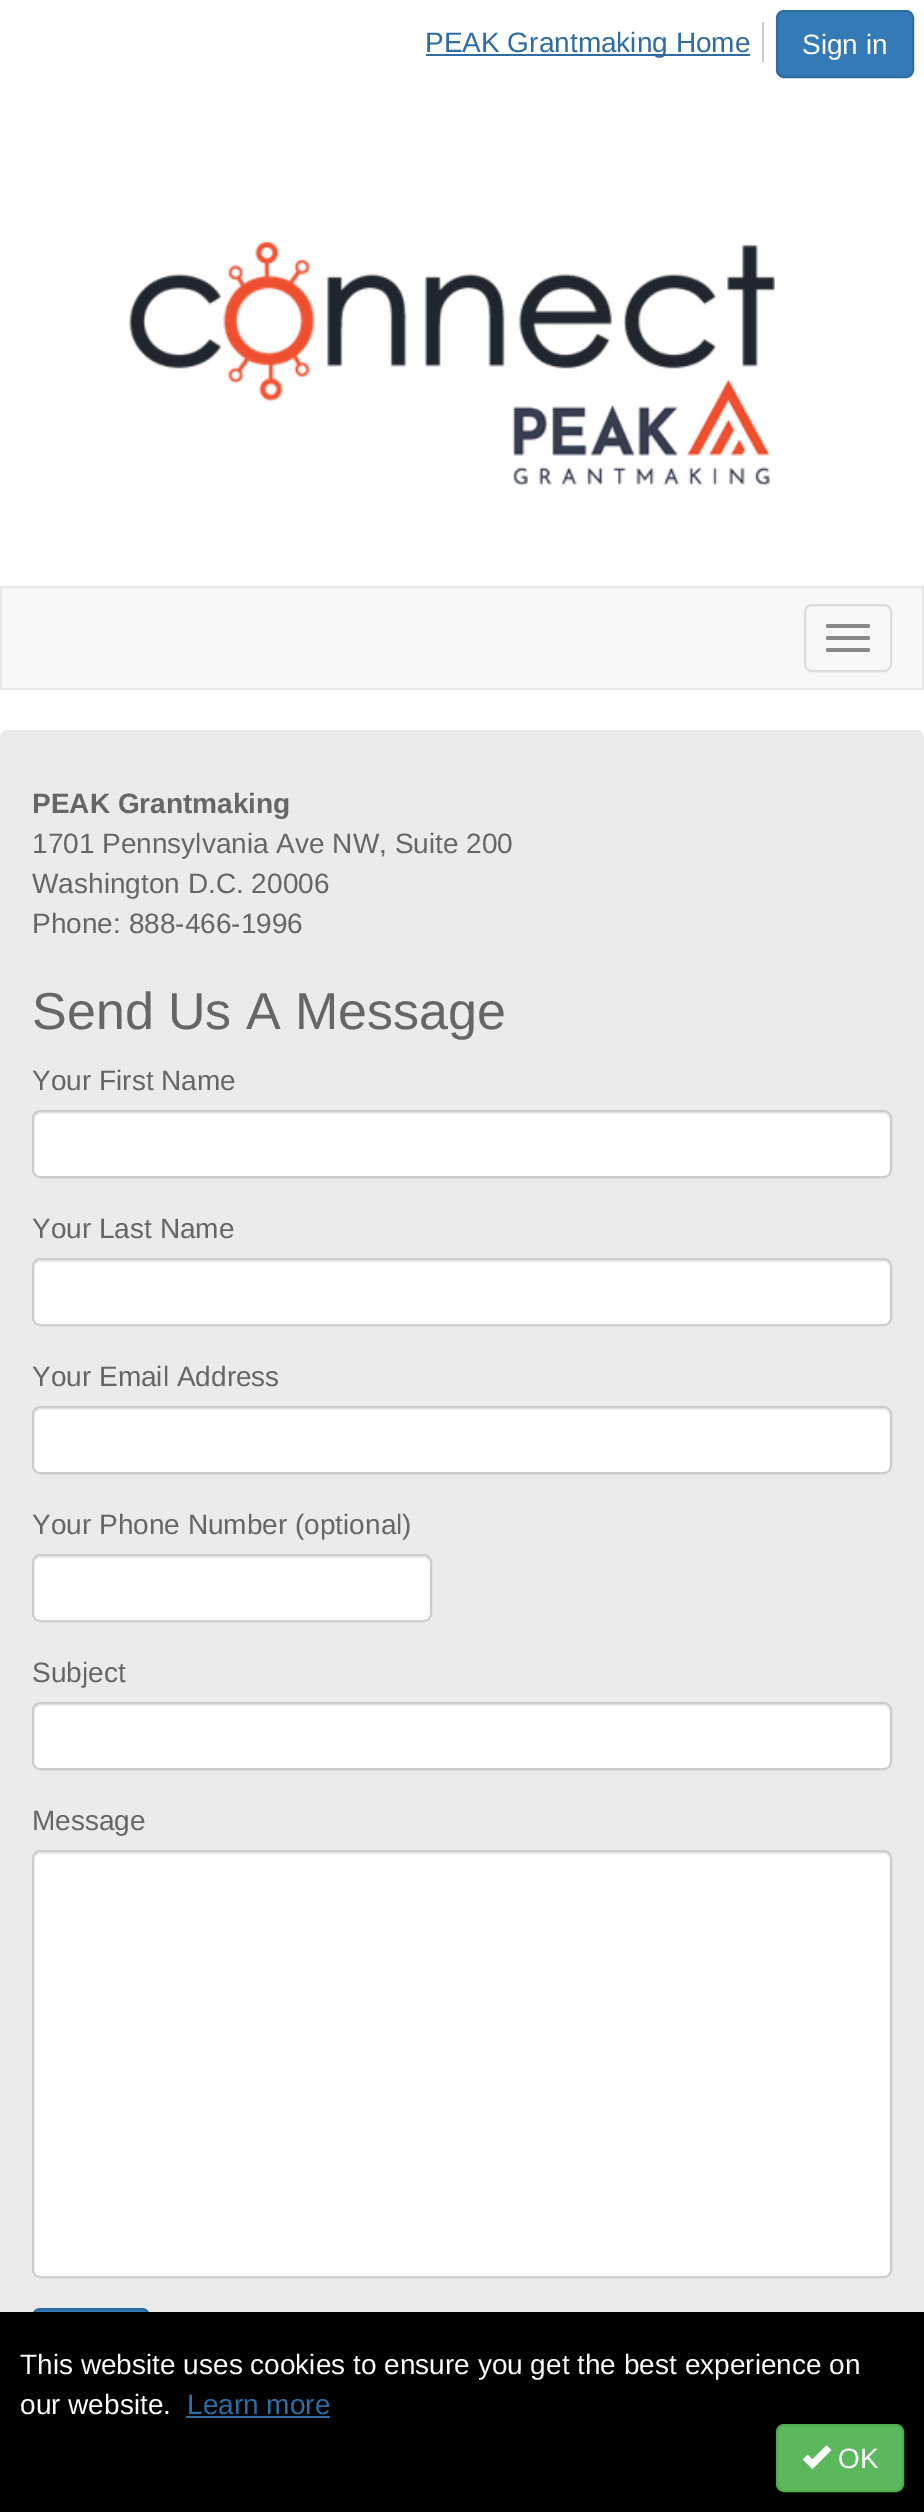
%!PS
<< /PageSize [924 2512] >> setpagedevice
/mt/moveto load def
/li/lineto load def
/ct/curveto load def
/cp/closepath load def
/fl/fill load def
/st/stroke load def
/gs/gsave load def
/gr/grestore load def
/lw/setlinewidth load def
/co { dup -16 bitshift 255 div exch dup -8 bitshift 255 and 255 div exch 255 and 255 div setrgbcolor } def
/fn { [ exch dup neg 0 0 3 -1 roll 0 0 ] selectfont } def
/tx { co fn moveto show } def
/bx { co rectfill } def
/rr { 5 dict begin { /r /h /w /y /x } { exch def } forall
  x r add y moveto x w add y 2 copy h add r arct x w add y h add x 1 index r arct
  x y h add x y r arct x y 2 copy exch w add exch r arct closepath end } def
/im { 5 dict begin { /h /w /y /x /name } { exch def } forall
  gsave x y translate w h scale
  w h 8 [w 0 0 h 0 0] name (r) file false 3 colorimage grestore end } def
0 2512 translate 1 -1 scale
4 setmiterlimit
0 0 924 2512 16#FFFFFF bx
762 22 2 40 16#CCCCCC bx
426 54 324 2 16#2E6DA4 bx
16#337AB7 co
777 11 136 66 7 rr gs fl gr
16#2E6DA4 co
2 lw
st
(media/1.raw) 129 241 647 245 im
16#F8F8F8 co
1 587 mt 923 587 li 923 689 li 1 689 li cp gs fl gr
16#E7E7E7 co
st
16#DDDDDD co
805 605 86 66 7 rr st
16#888888 co
826 624 44 4 2 rr fl
826 636 44 4 2 rr fl
826 648 44 4 2 rr fl
16#EBEBEB co
0 730 924 1668 8 rr fl
16#FFFFFF co
32 1110 860 68 8 rr fl
16#ECECEC co
40 1114 mt 884 1114 li 887 1114 890 1117 890 1120 ct 890 1116 889 1112 884 1112 ct 40 1112 li 35 1112 34 1116 34 1120 ct 34 1117 37 1114 40 1114 ct cp fl
16#CCCCCC co
33 1111 858 66 7 rr st
16#FFFFFF co
32 1258 860 68 8 rr fl
16#ECECEC co
40 1262 mt 884 1262 li 887 1262 890 1265 890 1268 ct 890 1264 889 1260 884 1260 ct 40 1260 li 35 1260 34 1264 34 1268 ct 34 1265 37 1262 40 1262 ct cp fl
16#CCCCCC co
33 1259 858 66 7 rr st
16#FFFFFF co
32 1406 860 68 8 rr fl
16#ECECEC co
40 1410 mt 884 1410 li 887 1410 890 1413 890 1416 ct 890 1412 889 1408 884 1408 ct 40 1408 li 35 1408 34 1412 34 1416 ct 34 1413 37 1410 40 1410 ct cp fl
16#CCCCCC co
33 1407 858 66 7 rr st
16#FFFFFF co
32 1554 400 68 8 rr fl
16#ECECEC co
40 1558 mt 424 1558 li 427 1558 430 1561 430 1564 ct 430 1560 429 1556 424 1556 ct 40 1556 li 35 1556 34 1560 34 1564 ct 34 1561 37 1558 40 1558 ct cp fl
16#CCCCCC co
33 1555 398 66 7 rr st
16#FFFFFF co
32 1702 860 68 8 rr fl
16#ECECEC co
40 1706 mt 884 1706 li 887 1706 890 1709 890 1712 ct 890 1708 889 1704 884 1704 ct 40 1704 li 35 1704 34 1708 34 1712 ct 34 1709 37 1706 40 1706 ct cp fl
16#CCCCCC co
33 1703 858 66 7 rr st
16#FFFFFF co
32 1850 860 428 8 rr fl
16#ECECEC co
40 1854 mt 884 1854 li 887 1854 890 1857 890 1860 ct 890 1856 889 1852 884 1852 ct 40 1852 li 35 1852 34 1856 34 1860 ct 34 1857 37 1854 40 1854 ct cp fl
16#CCCCCC co
33 1851 858 426 7 rr st
16#337AB7 co
33 2309 116 66 7 rr gs fl gr
16#2E6DA4 co
st
0 2312 924 200 16#000000 bx
186 2416 144 2 16#2E6DA4 bx
16#5CB85C co
777 2425 126 66 7 rr gs fl gr
16#4CAE4C co
st
(media/2.raw) 802 2445 30 24 im
(PEAK Grantmaking Home) 425 52 /LiberationSans-Regular 28 16#2E6DA4 tx
(Sign in) 802 54 /LiberationSans-Regular 28 16#FFFFFF tx
(PEAK Grantmaking) 32 813 /LiberationSans-Bold 28 16#666666 tx
(1701 Pennsylvania Ave NW, Suite 200) 32 853 /LiberationSans-Regular 28 16#666666 tx
(Washington D.C. 20006) 32 893 /LiberationSans-Regular 28 16#666666 tx
(Phone: 888-466-1996) 32 933 /LiberationSans-Regular 28 16#666666 tx
(Send Us A Message) 32 1029 /LiberationSans-Regular 52 16#666666 tx
(Your First Name) 32 1090 /LiberationSans-Regular 28 16#666666 tx
(Your Last Name) 32 1238 /LiberationSans-Regular 28 16#666666 tx
(Your Email Address) 32 1386 /LiberationSans-Regular 28 16#666666 tx
(Your Phone Number \(optional\)) 32 1534 /LiberationSans-Regular 28 16#666666 tx
(Subject) 32 1682 /LiberationSans-Regular 28 16#666666 tx
(Message) 32 1830 /LiberationSans-Regular 28 16#666666 tx
(This website uses cookies to ensure you get the best experience on) 20 2374 /LiberationSans-Regular 28 16#FFFFFF tx
(our website.) 20 2414 /LiberationSans-Regular 28 16#FFFFFF tx
(Learn more) 187 2414 /LiberationSans-Regular 28 16#2E6DA4 tx
(OK) 838 2468 /LiberationSans-Regular 28 16#FFFFFF tx
showpage
